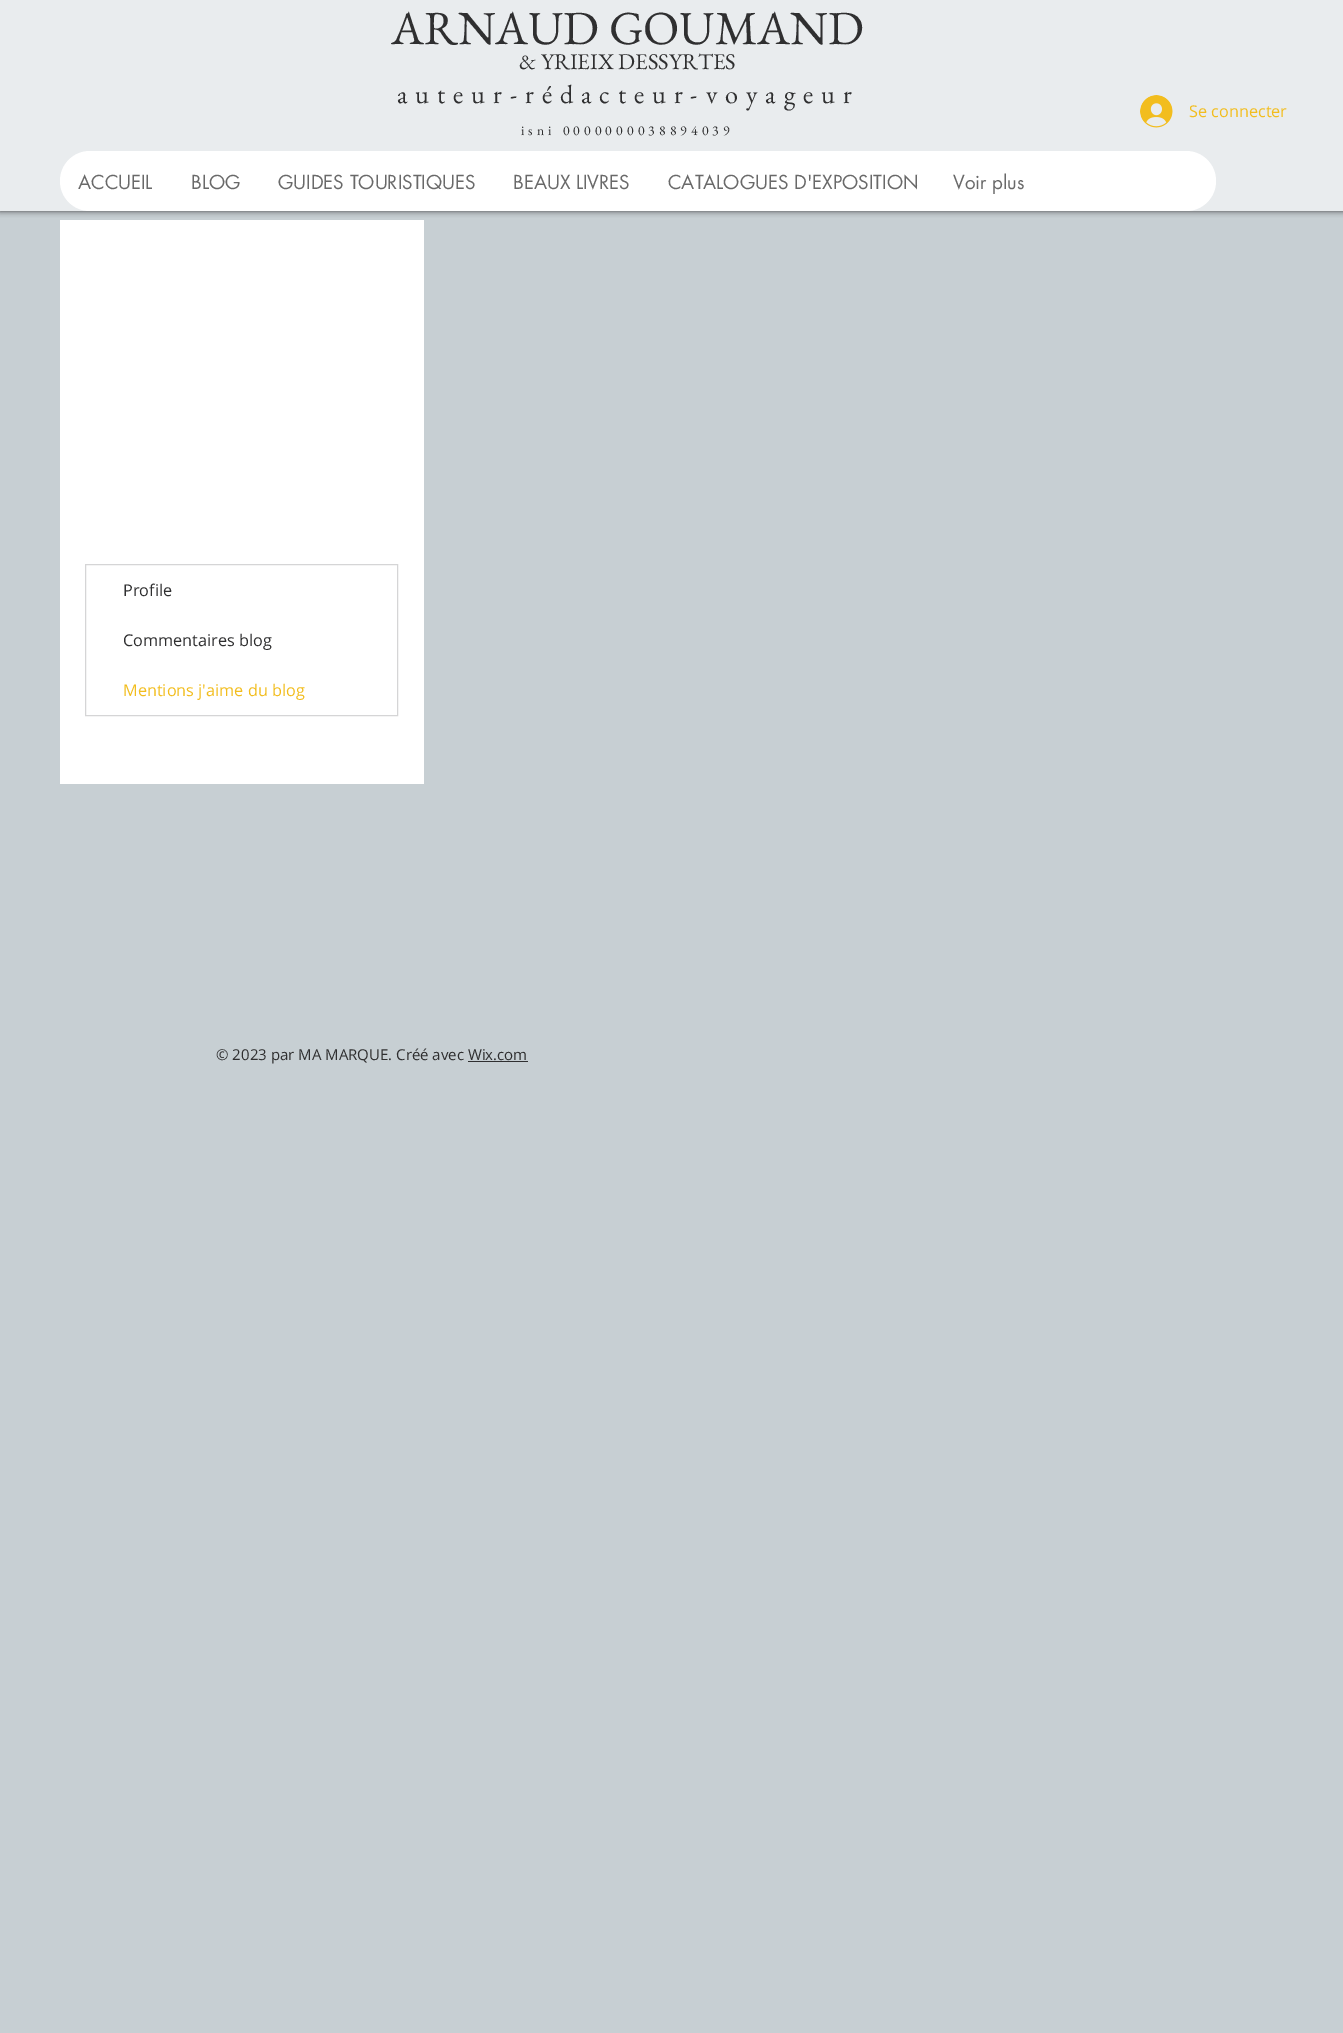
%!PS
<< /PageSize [1343 2033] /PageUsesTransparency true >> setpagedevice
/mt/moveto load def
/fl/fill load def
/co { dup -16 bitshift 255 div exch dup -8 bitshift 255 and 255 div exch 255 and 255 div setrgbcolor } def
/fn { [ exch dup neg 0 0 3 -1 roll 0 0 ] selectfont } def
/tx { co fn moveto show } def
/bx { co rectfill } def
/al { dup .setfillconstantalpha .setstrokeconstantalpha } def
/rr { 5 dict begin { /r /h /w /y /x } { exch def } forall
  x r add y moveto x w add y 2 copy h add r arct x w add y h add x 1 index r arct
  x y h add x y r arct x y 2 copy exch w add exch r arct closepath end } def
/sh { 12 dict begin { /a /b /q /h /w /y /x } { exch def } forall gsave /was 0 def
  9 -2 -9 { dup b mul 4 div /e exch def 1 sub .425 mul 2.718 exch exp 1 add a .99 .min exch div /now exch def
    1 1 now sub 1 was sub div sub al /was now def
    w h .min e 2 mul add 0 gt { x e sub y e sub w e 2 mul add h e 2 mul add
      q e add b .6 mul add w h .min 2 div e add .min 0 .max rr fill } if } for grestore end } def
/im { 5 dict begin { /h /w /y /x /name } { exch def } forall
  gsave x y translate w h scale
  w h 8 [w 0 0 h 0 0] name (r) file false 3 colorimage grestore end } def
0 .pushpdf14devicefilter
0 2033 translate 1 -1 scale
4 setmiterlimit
0 0 1343 2033 16#C7CFD3 bx
16#000000 co
0 0 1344 211 0 3 .7 sh
0 0 1343 211 16#E9ECEE bx
(media/1.raw) 1140 95 33 33 im
16#FFFFFF co
60 151 1156 60 30 rr fl
60 220 364 564 16#FFFFFF bx
16#D5D5D6 co
85.5 564.5 312 151 rectstroke
468 1061 60 1 16#2F2F30 bx
(ARNAUD GOUMAND) 391 44 /EBGaramond-Regular 47.5 16#2F2F30 tx
(& YRIEIX DESSYRTES) 519 69 /EBGaramond-Regular 22.5 16#2F2F30 tx
/EBGaramond-Regular 26.25 fn
397 103 mt 7.9 0 (auteur-rédacteur-voyageur) ashow
/EBGaramond-Regular 13.75 fn
521 135 mt 4.1 0 (isni 0000000038894039) ashow
(Se connecter) 1189 117 /OpenSans-Regular 16.25 16#F2BD1E tx
(ACCUEIL) 78 189 /futura-Regular 18.75 16#696969 tx
(BLOG) 191 189 /futura-Regular 18.75 16#696969 tx
(GUIDES TOURISTIQUES) 278 189 /futura-Regular 18.75 16#696969 tx
(BEAUX LIVRES) 513 189 /futura-Regular 18.75 16#696969 tx
(CATALOGUES D'EXPOSITION) 668 189 /futura-Regular 18.75 16#696969 tx
(Voir plus) 953 189 /futura-Regular 18.75 16#696969 tx
(Profile) 123 596 /OpenSans-Regular 16.25 16#2F2F30 tx
(Commentaires blog) 123 646 /OpenSans-Regular 16.25 16#2F2F30 tx
(Mentions j'aime du blog) 123 696 /OpenSans-Regular 16.25 16#F2BD1E tx
(© 2023 par MA MARQUE. Créé avec Wix.com) 216 1060 /OpenSans-Regular 15 16#2F2F30 tx
.poppdf14devicefilter showpage
